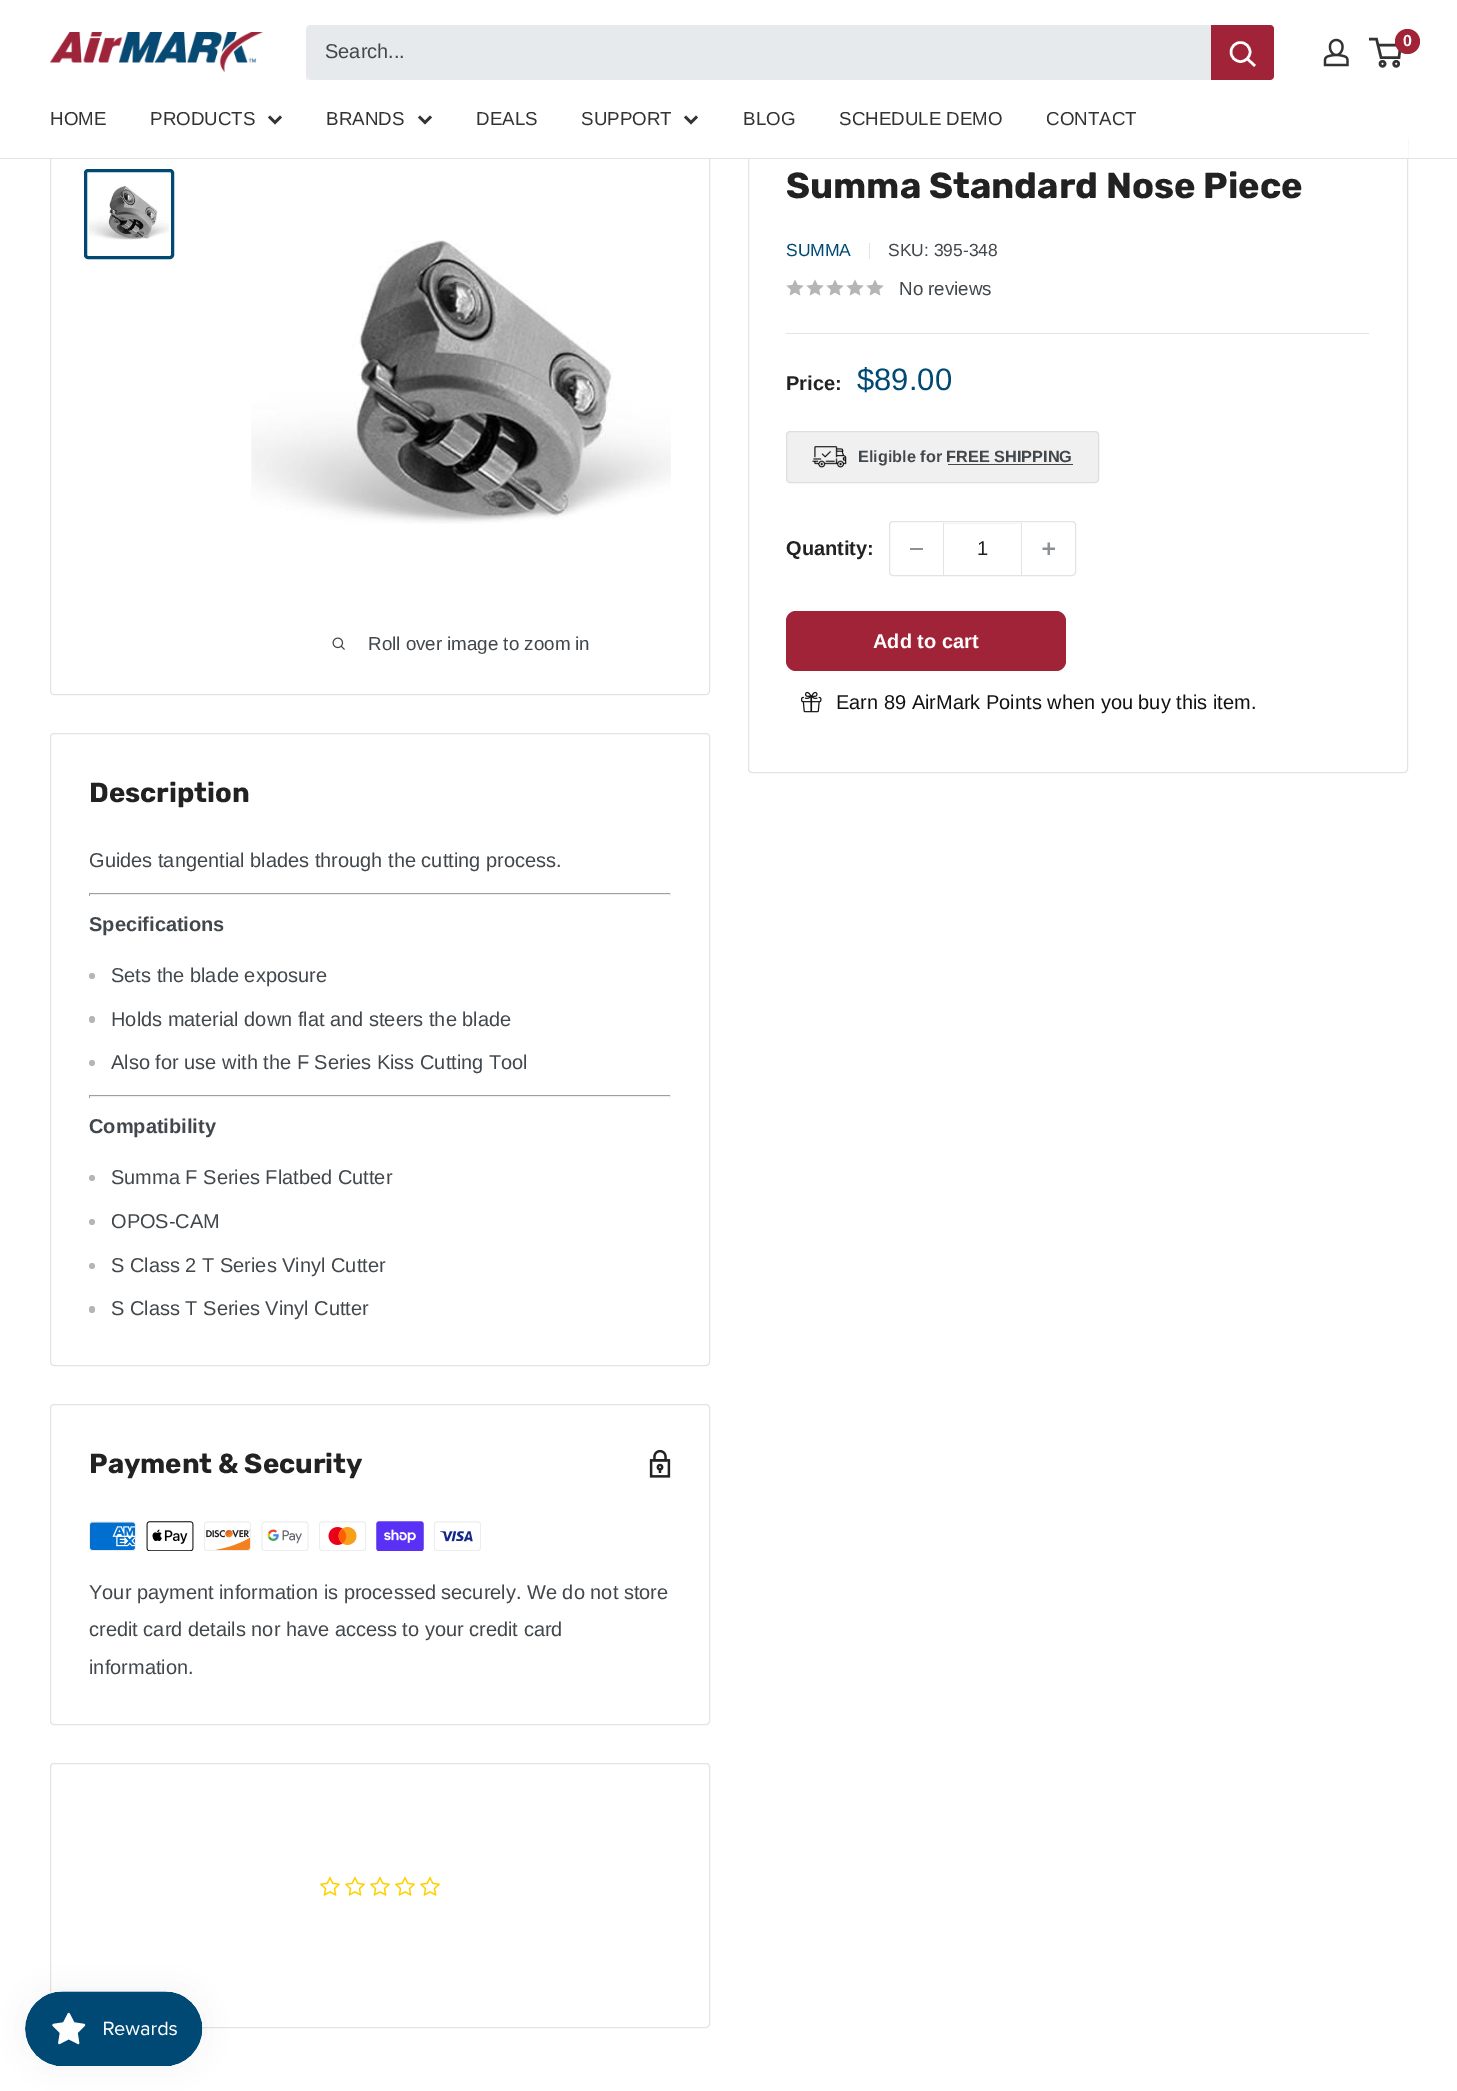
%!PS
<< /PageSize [1457 2091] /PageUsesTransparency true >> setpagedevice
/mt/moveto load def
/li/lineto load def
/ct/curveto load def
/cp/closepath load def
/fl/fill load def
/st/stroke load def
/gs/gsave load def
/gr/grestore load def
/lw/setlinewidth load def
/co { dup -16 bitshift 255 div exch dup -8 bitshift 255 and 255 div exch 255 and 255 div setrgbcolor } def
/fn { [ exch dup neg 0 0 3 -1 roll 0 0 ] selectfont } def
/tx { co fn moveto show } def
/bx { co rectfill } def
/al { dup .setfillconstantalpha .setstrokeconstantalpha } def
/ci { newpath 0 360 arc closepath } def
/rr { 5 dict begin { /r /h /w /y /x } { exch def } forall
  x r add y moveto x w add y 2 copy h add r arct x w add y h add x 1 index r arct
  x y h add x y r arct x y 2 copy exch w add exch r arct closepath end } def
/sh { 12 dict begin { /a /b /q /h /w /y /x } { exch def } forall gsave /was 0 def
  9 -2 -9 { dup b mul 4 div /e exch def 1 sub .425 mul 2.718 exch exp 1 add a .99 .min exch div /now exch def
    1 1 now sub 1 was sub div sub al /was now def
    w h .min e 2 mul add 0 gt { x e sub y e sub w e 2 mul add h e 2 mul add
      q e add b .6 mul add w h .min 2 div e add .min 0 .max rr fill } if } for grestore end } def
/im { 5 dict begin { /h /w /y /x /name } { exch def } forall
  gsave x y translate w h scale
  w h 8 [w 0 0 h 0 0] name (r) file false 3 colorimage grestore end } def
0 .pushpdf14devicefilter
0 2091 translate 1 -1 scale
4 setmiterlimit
0 0 1457 2091 16#FFFFFF bx
(media/1.raw) 50 32 213 40 im
(media/2.raw) 1323 38 26 29 im
16#333333 co
2.5 lw
1382.5 63.8 2.5 ci st
1396.2 63.8 2.5 ci st
1378 45 mt 1400.5 45 li 1399 57.5 li 1381 57.5 li 1376.5 39 li 1369 39 li st
16#A12338 co
1407.5 41.5 12.5 ci fl
16#ECECEC co
307 78 mt 307 79 309 80 310 80 ct 1270 80 li 1272 80 1274 78 1274 76 ct 1274 29 li 1274 27 1273 26 1272 25 ct 1272 28 li 1272 75 li 1272 77 1271 79 1269 79 ct 309 79 li cp fl
0.3 al
16#BEBEBE co
311 26 mt 1271 26 li 1273 27 li 1273 26 1271 25 1270 25 ct 310 25 li 308 25 306 27 306 29 ct 306 76 li 306 78 307 79 308 80 ct 308 38 li 308 37 306 26 311 26 ct cp fl
1 al
16#E7EAED co
314 25 mt 1211 25 li 1211 80 li 314 80 li 309.5 80 306 76.5 306 72 ct 306 33 li 306 28.5 309.5 25 314 25 ct cp fl
16#A12338 co
1211 25 mt 1270 25 li 1272 25 1274 27 1274 29 ct 1274 76 li 1274 78 1272 80 1270 80 ct 1211 80 li cp fl
16#FFFFFF co
2 setlinecap
1254 65 mt 1247.5 59 li st
0 setlinecap
1240.5 52 9.5 ci st
16#E1E3E4 co
1 lw
50.5 135.5 659 559 3.5 rr st
748.5 135.5 659 637 3.5 rr st
50 135 1358 23 16#FFFFFF bx
0 158 1457 1 16#E1E3E4 bx
16#333333 co
2.5 lw
2 setlinecap
280 117.5 mt 275 122.5 li 270 117.5 li st
430 117.5 mt 425 122.5 li 420 117.5 li st
696 117.5 mt 691 122.5 li 686 117.5 li st
16#004975 co
3 lw
0 setlinecap
85.5 170.5 87 87 2.5 rr st
(media/3.raw) 89 186 80 54 im
(media/4.raw) 251 240 420 284 im
(media/5.raw) 332 637 13 13 im
869 243 1 16 16#E1E3E4 bx
(media/6.raw) 786 279 18 17 im
(media/6.raw) 806 279 18 17 im
(media/6.raw) 826 279 18 17 im
(media/6.raw) 846 279 18 17 im
(media/6.raw) 866 279 18 17 im
786 333 583 1 16#E1E3E4 bx
16#F0F0F0 co
786.5 431.5 312 51 3.5 rr gs fl gr
16#DEDEDE co
1 lw
st
(media/7.raw) 812 446 35 22 im
948 464 125 1 16#41474B bx
16#E1E3E4 co
889.5 521.5 186 54 3.5 rr st
910 548 13 2 16#8D9193 bx
944 523 77 1 16#F3F4F4 bx
1021 523 1 52 16#E1E3E4 bx
943 523 1 52 16#E1E3E4 bx
(media/8.raw) 1042 542 13 13 im
16#A12338 co
786 611 280 60 10 rr fl
(media/9.raw) 801 691 21 22 im
16#E1E3E4 co
50.5 733.5 659 632 3.5 rr st
89 893 582 1 16#9F9F9F bx
670 893 1 3 16#EEEEEE bx
89 894 582 1 16#EEEEEE bx
89 893 1 3 16#9F9F9F bx
16#B3B5B7 co
92 976 3 ci fl
89 1016 6 7 3 rr fl
92 1063 3 ci fl
89 1095 582 1 16#9F9F9F bx
670 1095 1 3 16#EEEEEE bx
89 1096 582 1 16#EEEEEE bx
89 1095 1 3 16#9F9F9F bx
16#B3B5B7 co
92 1178 3 ci fl
92 1222 3 ci fl
92 1266 3 ci fl
89 1306 6 7 3 rr fl
16#E1E3E4 co
50.5 1404.5 659 320 3.5 rr st
(media/10.raw) 649 1449 22 29 im
(media/11.raw) 89 1521 47 30 im
(media/12.raw) 146 1521 48 30 im
(media/13.raw) 204 1521 47 30 im
(media/14.raw) 261 1521 48 30 im
(media/15.raw) 319 1521 47 30 im
(media/16.raw) 376 1521 48 30 im
(media/17.raw) 434 1521 47 30 im
50.5 1763.5 659 264 3.5 rr st
(media/18.raw) 320 1876 20 20 im
(media/18.raw) 345 1876 20 20 im
(media/18.raw) 370 1876 20 20 im
(media/18.raw) 395 1876 20 20 im
(media/18.raw) 420 1876 20 20 im
16#000000 co
25 1991 178 75 37.5 15.5 .05 sh
(media/19.raw) 25 1991 178 75 im
(0) 1403 46 /LiberationSans-Bold 16 16#FFFFFF tx
(Search...) 325 58 /LiberationSans-Regular 20 16#41474B tx
(HOME) 50 125 /LiberationSans-Regular 18.75 16#333333 tx
(PRODUCTS) 150 125 /LiberationSans-Regular 18.75 16#333333 tx
(BRANDS) 326 125 /LiberationSans-Regular 18.75 16#333333 tx
(DEALS) 476 125 /LiberationSans-Regular 18.75 16#333333 tx
(SUPPORT) 581 125 /LiberationSans-Regular 18.75 16#333333 tx
(BLOG) 743 125 /LiberationSans-Regular 18.75 16#333333 tx
(SCHEDULE DEMO) 839 125 /LiberationSans-Regular 18.75 16#333333 tx
(CONTACT) 1046 125 /LiberationSans-Regular 18.75 16#333333 tx
(Roll over image to zoom in) 368 650 /LiberationSans-Regular 18.75 16#41474B tx
(Summa Standard Nose Piece) 786 198 /Rubik-Bold 36.25 16#222222 tx
(SUMMA) 786 256 /LiberationSans-Regular 17.5 16#004975 tx
(SKU: 395-348) 888 256 /LiberationSans-Regular 17.5 16#41474B tx
(No reviews) 899 295 /LiberationSans-Regular 18.75 16#41474B tx
(Price:) 786 390 /LiberationSans-Bold 20 16#222222 tx
($89.00) 857 390 /LiberationSans-Regular 31 16#004975 tx
(Eligible for FREE SHIPPING) 858 462 /LiberationSans-Bold 16.25 16#41474B tx
(Quantity:) 786 555 /LiberationSans-Bold 20 16#222222 tx
(1) 977 555 /LiberationSans-Regular 20 16#222222 tx
(Add to cart) 873 648 /LiberationSans-Bold 20 16#FFFFFF tx
(Earn 89 AirMark Points when you buy this item.) 836 709 /LiberationSans-Regular 20 16#121212 tx
(Description) 89 802 /Rubik-Bold 27.5 16#222222 tx
(Guides tangential blades through the cutting process.) 89 867 /LiberationSans-Regular 20 16#41474B tx
(Specifications) 89 931 /LiberationSans-Bold 20 16#41474B tx
(Sets the blade exposure) 111 982 /LiberationSans-Regular 20 16#41474B tx
(Holds material down flat and steers the blade) 111 1026 /LiberationSans-Regular 20 16#41474B tx
(Also for use with the F Series Kiss Cutting Tool) 111 1069 /LiberationSans-Regular 20 16#41474B tx
(Compatibility) 89 1133 /LiberationSans-Bold 20 16#41474B tx
(Summa F Series Flatbed Cutter) 111 1184 /LiberationSans-Regular 20 16#41474B tx
(OPOS-CAM) 111 1228 /LiberationSans-Regular 20 16#41474B tx
(S Class 2 T Series Vinyl Cutter) 111 1272 /LiberationSans-Regular 20 16#41474B tx
(S Class T Series Vinyl Cutter) 111 1315 /LiberationSans-Regular 20 16#41474B tx
(Payment & Security) 89 1473 /Rubik-Bold 27.5 16#222222 tx
(Your payment information is processed securely. We do not store) 89 1599 /LiberationSans-Regular 20 16#41474B tx
(credit card details nor have access to your credit card) 89 1636 /LiberationSans-Regular 20 16#41474B tx
(information.) 89 1674 /LiberationSans-Regular 20 16#41474B tx
.poppdf14devicefilter showpage
